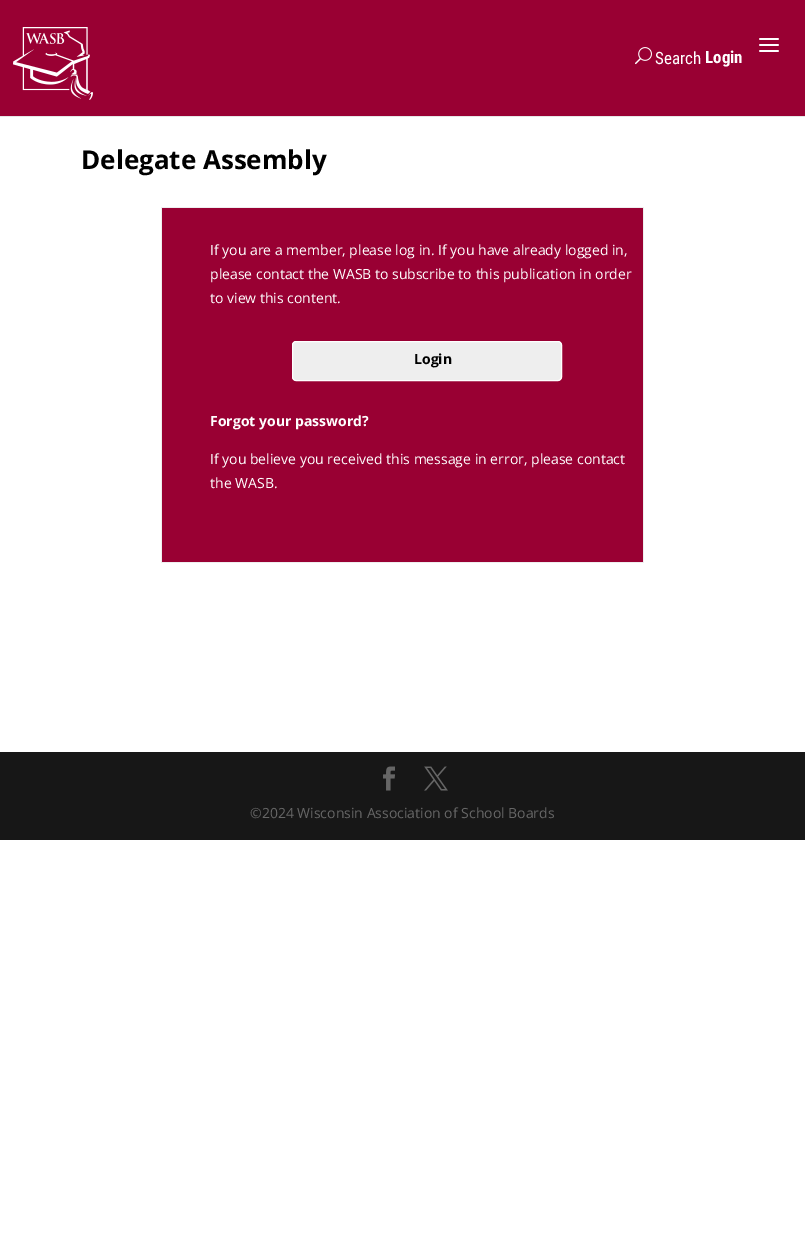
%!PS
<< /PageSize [805 1252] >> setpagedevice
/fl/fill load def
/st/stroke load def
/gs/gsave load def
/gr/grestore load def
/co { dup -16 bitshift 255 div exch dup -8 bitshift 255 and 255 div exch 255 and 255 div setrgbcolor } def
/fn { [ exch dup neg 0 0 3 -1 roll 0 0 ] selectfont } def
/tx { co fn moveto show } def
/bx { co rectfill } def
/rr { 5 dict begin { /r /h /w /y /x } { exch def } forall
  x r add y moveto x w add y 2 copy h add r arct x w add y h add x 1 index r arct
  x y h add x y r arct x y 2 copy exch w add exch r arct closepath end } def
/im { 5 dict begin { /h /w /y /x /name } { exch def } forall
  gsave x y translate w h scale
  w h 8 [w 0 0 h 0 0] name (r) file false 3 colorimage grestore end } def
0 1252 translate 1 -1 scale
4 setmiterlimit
0 0 805 1252 16#FFFFFF bx
0 116 805 1 16#E6E6E6 bx
0 0 805 116 16#990033 bx
(media/1.raw) 13 27 80 73 im
(media/2.raw) 759 38 20 14 im
(media/3.raw) 635 47 17 18 im
161 207 483 1 16#EEEEEE bx
643 207 1 356 16#EEEEEE bx
161 562 483 1 16#EEEEEE bx
161 207 1 356 16#EEEEEE bx
162 208 481 354 16#990033 bx
16#EEEEEE co
292.5 341.5 269 39 3.5 rr gs fl gr
16#FFFFFF co
st
0 752 805 88 16#171717 bx
(media/4.raw) 383 766 12 25 im
(media/5.raw) 424 766 24 25 im
(Search) 655 64 /RobotoCondensed-Regular 17 16#FFFFFF tx
(Login) 705 63 /RobotoCondensed-Bold 17 16#FFFFFF tx
(Delegate Assembly) 81 169 /OpenSans-Bold 26 16#000000 tx
(If you are a member, please log in. If you have already logged in,) 210 255 /OpenSans-Regular 14 16#FFFFFF tx
(please contact the WASB to subscribe to this publication in order) 210 279 /OpenSans-Regular 14 16#FFFFFF tx
(to view this content.) 210 303 /OpenSans-Regular 14 16#FFFFFF tx
(Login) 414 364 /OpenSans-Bold 14 16#000000 tx
(Forgot your password?) 210 426 /OpenSans-Bold 14 16#FFFFFF tx
(If you believe you received this message in error, please contact) 210 464 /OpenSans-Regular 14 16#FFFFFF tx
(the WASB.) 210 488 /OpenSans-Regular 14 16#FFFFFF tx
(©2024 Wisconsin Association of School Boards) 250 818 /OpenSans-Regular 14 16#666666 tx
showpage
